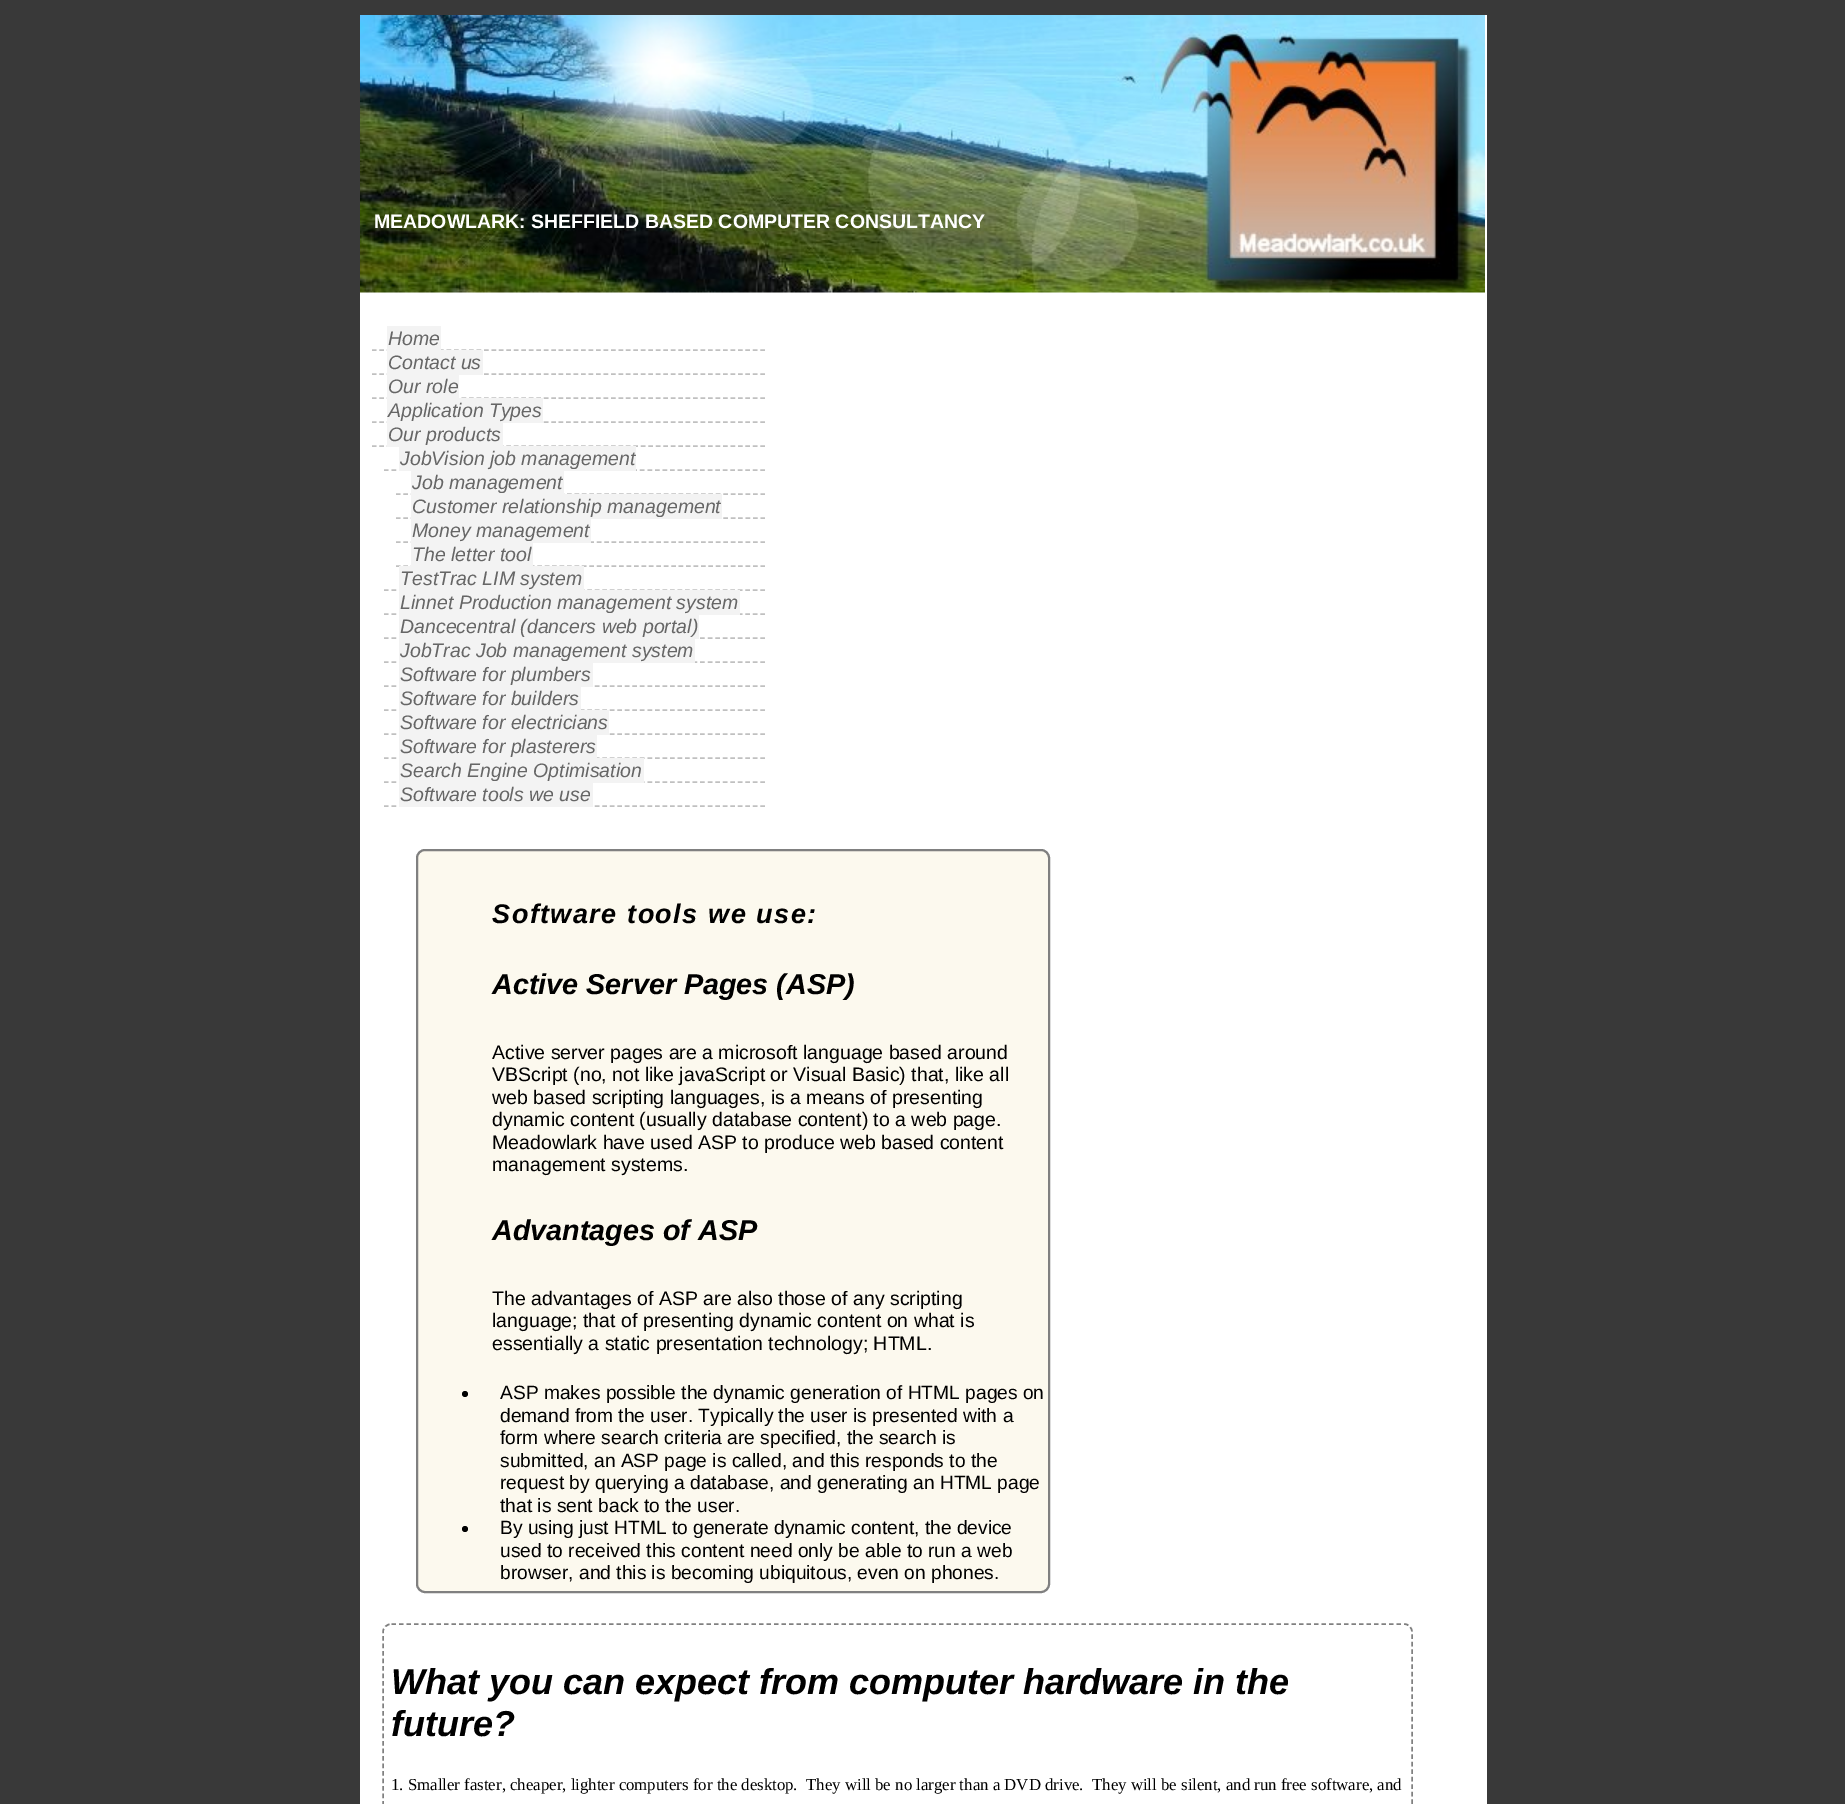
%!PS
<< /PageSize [1845 1804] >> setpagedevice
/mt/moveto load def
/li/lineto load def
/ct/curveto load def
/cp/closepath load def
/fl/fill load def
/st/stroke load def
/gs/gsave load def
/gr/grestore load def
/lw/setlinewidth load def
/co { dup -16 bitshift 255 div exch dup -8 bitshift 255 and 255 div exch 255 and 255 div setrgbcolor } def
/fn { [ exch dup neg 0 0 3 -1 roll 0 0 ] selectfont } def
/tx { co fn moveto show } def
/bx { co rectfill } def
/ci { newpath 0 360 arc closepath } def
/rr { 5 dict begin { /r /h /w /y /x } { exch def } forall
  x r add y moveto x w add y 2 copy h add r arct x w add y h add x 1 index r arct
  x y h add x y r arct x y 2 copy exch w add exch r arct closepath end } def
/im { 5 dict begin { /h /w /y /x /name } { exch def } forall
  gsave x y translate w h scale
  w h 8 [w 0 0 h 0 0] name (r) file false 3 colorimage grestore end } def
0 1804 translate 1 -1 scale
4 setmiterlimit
0 0 1845 1804 16#393939 bx
360 15 1127 1789 16#FFFFFF bx
(media/1.raw) 360 15 1125 278 im
16#C0C0C0 co
1.5 lw
[4.5 2.97] 0 setdash
372 350 mt 765 350 li st
387 326 54 24 16#F3F3F3 bx
16#C0C0C0 co
372 374 mt 765 374 li st
387 350 96 25 16#F3F3F3 bx
16#C0C0C0 co
372 398 mt 765 398 li st
387 375 72 23 16#F3F3F3 bx
16#C0C0C0 co
372 422 mt 765 422 li st
387 398 156 25 16#F3F3F3 bx
16#C0C0C0 co
372 446 mt 765 446 li st
387 423 116 24 16#F3F3F3 bx
16#C0C0C0 co
[4.5 3.03] 0 setdash
384 470 mt 765 470 li st
399 446 237 25 16#F3F3F3 bx
16#C0C0C0 co
[4.5 2.94] 0 setdash
396 494 mt 765 494 li st
411 471 153 23 16#F3F3F3 bx
16#C0C0C0 co
396 518 mt 765 518 li st
411 494 311 25 16#F3F3F3 bx
16#C0C0C0 co
396 542 mt 765 542 li st
411 519 180 24 16#F3F3F3 bx
16#C0C0C0 co
396 566 mt 765 566 li st
411 543 122 23 16#F3F3F3 bx
16#C0C0C0 co
[4.5 3.03] 0 setdash
384 590 mt 765 590 li st
399 566 185 24 16#F3F3F3 bx
16#C0C0C0 co
384 614 mt 765 614 li st
399 590 341 25 16#F3F3F3 bx
16#C0C0C0 co
384 638 mt 765 638 li st
399 615 300 24 16#F3F3F3 bx
16#C0C0C0 co
384 662 mt 765 662 li st
399 639 296 24 16#F3F3F3 bx
16#C0C0C0 co
384 686 mt 765 686 li st
399 663 194 24 16#F3F3F3 bx
16#C0C0C0 co
384 710 mt 765 710 li st
399 687 182 23 16#F3F3F3 bx
16#C0C0C0 co
384 734 mt 765 734 li st
399 710 210 25 16#F3F3F3 bx
16#C0C0C0 co
384 758 mt 765 758 li st
399 735 198 23 16#F3F3F3 bx
16#C0C0C0 co
384 782 mt 765 782 li st
399 758 245 25 16#F3F3F3 bx
16#C0C0C0 co
384 806 mt 765 806 li st
399 783 194 24 16#F3F3F3 bx
16#FCF9EE co
417 850 632 742 8 rr gs fl gr
16#808080 co
2 lw
[] 0 setdash
st
16#000000 co
465 1394 3 ci fl
465 1529 3 ci fl
16#808080 co
1.5 lw
[4.5 3] 0 setdash
391.5 1624 mt 1404 1624 li 1408.5 1624 1412 1627.5 1412 1632 ct 1412 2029.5 li 1412 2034 1408.5 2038 1404 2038 ct 391.5 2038 li 387 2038 383 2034 383 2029.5 ct 383 1632 li 383 1627.5 387 1624 391.5 1624 ct cp st
(MEADOWLARK: SHEFFIELD BASED COMPUTER CONSULTANCY) 374 228 /LiberationSans-Bold 19.5 16#FFFFFF tx
(Home) 388 345 /LiberationSans-Italic 19.5 16#666666 tx
(Contact us) 388 369 /LiberationSans-Italic 19.5 16#666666 tx
(Our role) 388 393 /LiberationSans-Italic 19.5 16#666666 tx
(Application Types) 388 417 /LiberationSans-Italic 19.5 16#666666 tx
(Our products) 388 441 /LiberationSans-Italic 19.5 16#666666 tx
(JobVision job management) 400 465 /LiberationSans-Italic 19.5 16#666666 tx
(Job management) 412 489 /LiberationSans-Italic 19.5 16#666666 tx
(Customer relationship management) 412 513 /LiberationSans-Italic 19.5 16#666666 tx
(Money management) 412 537 /LiberationSans-Italic 19.5 16#666666 tx
(The letter tool) 412 561 /LiberationSans-Italic 19.5 16#666666 tx
(TestTrac LIM system) 400 585 /LiberationSans-Italic 19.5 16#666666 tx
(Linnet Production management system) 400 609 /LiberationSans-Italic 19.5 16#666666 tx
(Dancecentral \(dancers web portal\)) 400 633 /LiberationSans-Italic 19.5 16#666666 tx
(JobTrac Job management system) 400 657 /LiberationSans-Italic 19.5 16#666666 tx
(Software for plumbers) 400 681 /LiberationSans-Italic 19.5 16#666666 tx
(Software for builders) 400 705 /LiberationSans-Italic 19.5 16#666666 tx
(Software for electricians) 400 729 /LiberationSans-Italic 19.5 16#666666 tx
(Software for plasterers) 400 753 /LiberationSans-Italic 19.5 16#666666 tx
(Search Engine Optimisation) 400 777 /LiberationSans-Italic 19.5 16#666666 tx
(Software tools we use) 400 801 /LiberationSans-Italic 19.5 16#666666 tx
/LiberationSans-BoldItalic 27 fn
16#000000 co
492 923 mt 1.5 0 (Software tools we use:) ashow
(Active Server Pages \(ASP\)) 492 994 /LiberationSans-BoldItalic 28.75 16#000000 tx
(Active server pages are a microsoft language based around) 492 1059 /LiberationSans-Regular 19.5 16#000000 tx
(VBScript \(no, not like javaScript or Visual Basic\) that, like all) 492 1081 /LiberationSans-Regular 19.5 16#000000 tx
(web based scripting languages, is a means of presenting) 492 1104 /LiberationSans-Regular 19.5 16#000000 tx
(dynamic content \(usually database content\) to a web page.) 492 1126 /LiberationSans-Regular 19.5 16#000000 tx
(Meadowlark have used ASP to produce web based content) 492 1149 /LiberationSans-Regular 19.5 16#000000 tx
(management systems.) 492 1171 /LiberationSans-Regular 19.5 16#000000 tx
(Advantages of ASP) 492 1240 /LiberationSans-BoldItalic 28.75 16#000000 tx
(The advantages of ASP are also those of any scripting) 492 1305 /LiberationSans-Regular 19.5 16#000000 tx
(language; that of presenting dynamic content on what is) 492 1327 /LiberationSans-Regular 19.5 16#000000 tx
(essentially a static presentation technology; HTML.) 492 1350 /LiberationSans-Regular 19.5 16#000000 tx
(ASP makes possible the dynamic generation of HTML pages on) 500 1399 /LiberationSans-Regular 19.2 16#000000 tx
(demand from the user. Typically the user is presented with a) 500 1422 /LiberationSans-Regular 19.2 16#000000 tx
(form where search criteria are specified, the search is) 500 1444 /LiberationSans-Regular 19.2 16#000000 tx
(submitted, an ASP page is called, and this responds to the) 500 1467 /LiberationSans-Regular 19.2 16#000000 tx
(request by querying a database, and generating an HTML page) 500 1489 /LiberationSans-Regular 19.2 16#000000 tx
(that is sent back to the user.) 500 1512 /LiberationSans-Regular 19.2 16#000000 tx
(By using just HTML to generate dynamic content, the device) 500 1534 /LiberationSans-Regular 19.2 16#000000 tx
(used to received this content need only be able to run a web) 500 1557 /LiberationSans-Regular 19.2 16#000000 tx
(browser, and this is becoming ubiquitous, even on phones.) 500 1579 /LiberationSans-Regular 19.2 16#000000 tx
(What you can expect from computer hardware in the) 391 1694 /LiberationSans-BoldItalic 36 16#000000 tx
(future?) 391 1736 /LiberationSans-BoldItalic 36 16#000000 tx
(1. Smaller faster, cheaper, lighter computers for the desktop.  They will be no larger than a DVD drive.  They will be silent, and run free software, and) 391 1790 /LiberationSerif-Regular 16.8 16#000000 tx
showpage
